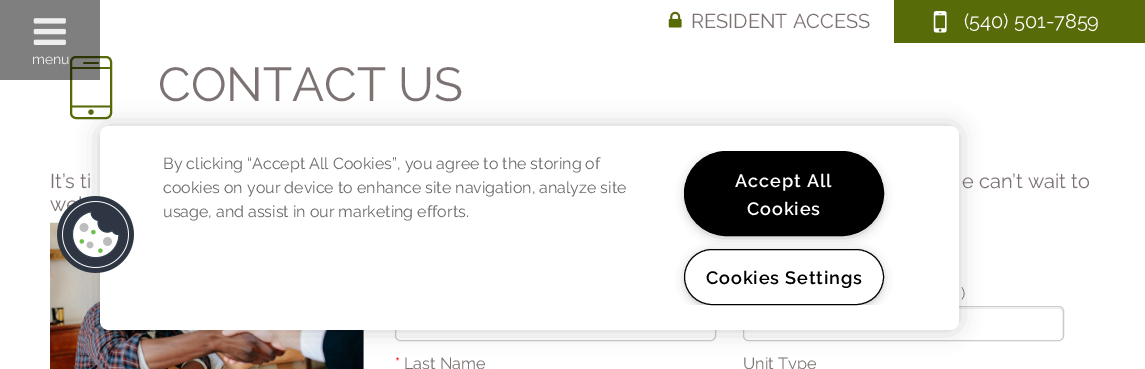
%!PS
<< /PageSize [1145 369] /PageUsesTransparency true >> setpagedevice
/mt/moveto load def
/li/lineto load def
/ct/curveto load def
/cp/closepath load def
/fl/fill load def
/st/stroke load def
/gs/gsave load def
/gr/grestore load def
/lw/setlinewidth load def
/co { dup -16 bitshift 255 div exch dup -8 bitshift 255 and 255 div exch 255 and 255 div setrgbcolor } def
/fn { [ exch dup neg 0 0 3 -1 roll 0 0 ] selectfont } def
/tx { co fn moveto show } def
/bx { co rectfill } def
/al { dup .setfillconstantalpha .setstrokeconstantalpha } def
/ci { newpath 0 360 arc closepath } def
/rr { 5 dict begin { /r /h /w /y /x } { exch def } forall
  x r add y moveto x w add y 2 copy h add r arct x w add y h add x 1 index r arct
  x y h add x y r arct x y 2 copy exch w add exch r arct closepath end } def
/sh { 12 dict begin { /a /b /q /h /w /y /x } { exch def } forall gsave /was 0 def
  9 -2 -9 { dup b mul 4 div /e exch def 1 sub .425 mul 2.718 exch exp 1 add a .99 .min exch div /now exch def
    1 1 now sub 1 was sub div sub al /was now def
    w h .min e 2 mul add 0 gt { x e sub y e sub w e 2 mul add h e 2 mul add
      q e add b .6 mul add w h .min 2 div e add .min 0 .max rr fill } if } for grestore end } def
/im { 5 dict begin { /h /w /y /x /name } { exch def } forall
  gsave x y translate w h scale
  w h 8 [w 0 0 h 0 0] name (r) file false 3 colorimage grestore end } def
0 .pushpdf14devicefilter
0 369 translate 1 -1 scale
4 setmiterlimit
0 0 1145 369 16#FFFFFF bx
894 0 251 43 16#576B09 bx
(media/1.raw) 668 11 14 17 im
(media/2.raw) 933 11 14 22 im
2 lw
71 57 40 61 5 rr st
1.8 lw
1 setlinecap
71 68 mt 110 68 li 84 63 mt 98 63 li 71.5 106.5 mt 110.5 106.5 li st
0.5 al
0 0 100 80 16#000000 bx
1 al
(media/3.raw) 33 18 33 27 im
16#576B09 co
91 112.1 2.6 ci fl
(media/4.raw) 50 222 314 147 im
16#CCCCCC co
1 lw
0 setlinecap
395.5 306.5 320 34 4.5 rr st
16#ECECEC co
748 309 mt 1059 309 li 1064 309 1062 318 1062 321 ct 1062 339 li 1063 338 1063 337 1063 336 ct 1063 312 li 1063 310 1061 308 1059 308 ct 748 308 li 746 308 745 309 744 310 ct 745 309 746 309 748 309 ct cp fl
16#CCCCCC co
743.5 306.5 320 34 4.5 rr st
16#000000 co
100 126 859 204 9 11 .2 sh
16#FFFFFF co
100 126 859 204 9 rr fl
gs
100 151 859 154 rectclip
16#999999 co
688 158 192 77 38.5 6 1 sh
gr
16#000000 co
684.5 151.5 199 84 42 rr gs fl gr
st
gs
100 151 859 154 rectclip
16#999999 co
688 255 192 49 24.5 6 1 sh
gr
16#FFFFFF co
684.5 249.5 199 55 27.5 rr gs fl gr
16#000000 co
st
(RESIDENT ACCESS) 691 28 /Raleway-Regular 20 16#7D7272 tx
(\(540\) 501-7859) 964 28 /Raleway-Regular 20 16#FFFFFF tx
(menu) 32 64 /Raleway-Regular 14 16#EEEEEE tx
(CONTACT US) 158 101 /Raleway-Regular 47.5 16#7D7272 tx
(It’s ti) 50 188 /Raleway-Regular 20 16#7D7272 tx
(e can’t wait to) 962 188 /Raleway-Regular 20 16#7D7272 tx
(w) 50 211 /Raleway-Regular 20 16#7D7272 tx
(*) 395 369 /Raleway-Regular 16.25 16#FF0000 tx
(Last Name) 404 369 /Raleway-Regular 16.25 16#7D7272 tx
(\)) 961 299 /Raleway-Regular 16.25 16#7D7272 tx
(Unit Type) 743 369 /Raleway-Regular 16.25 16#7D7272 tx
(media/5.raw) 57 196 77 77 im
(By clicking “Accept All Cookies”, you agree to the storing of) 163 169 /Raleway-Regular 16 16#696969 tx
(cookies on your device to enhance site navigation, analyze site) 163 193 /Raleway-Regular 16 16#696969 tx
(usage, and assist in our marketing efforts.) 163 217 /Raleway-Regular 16 16#696969 tx
/Raleway-SemiBold 18 fn
16#FFFFFF co
735 187 mt .9 0 (Accept All) ashow
747 215 mt .9 0 (Cookies) ashow
16#000000 co
706 284 mt .9 0 (Cookies Settings) ashow
.poppdf14devicefilter showpage
